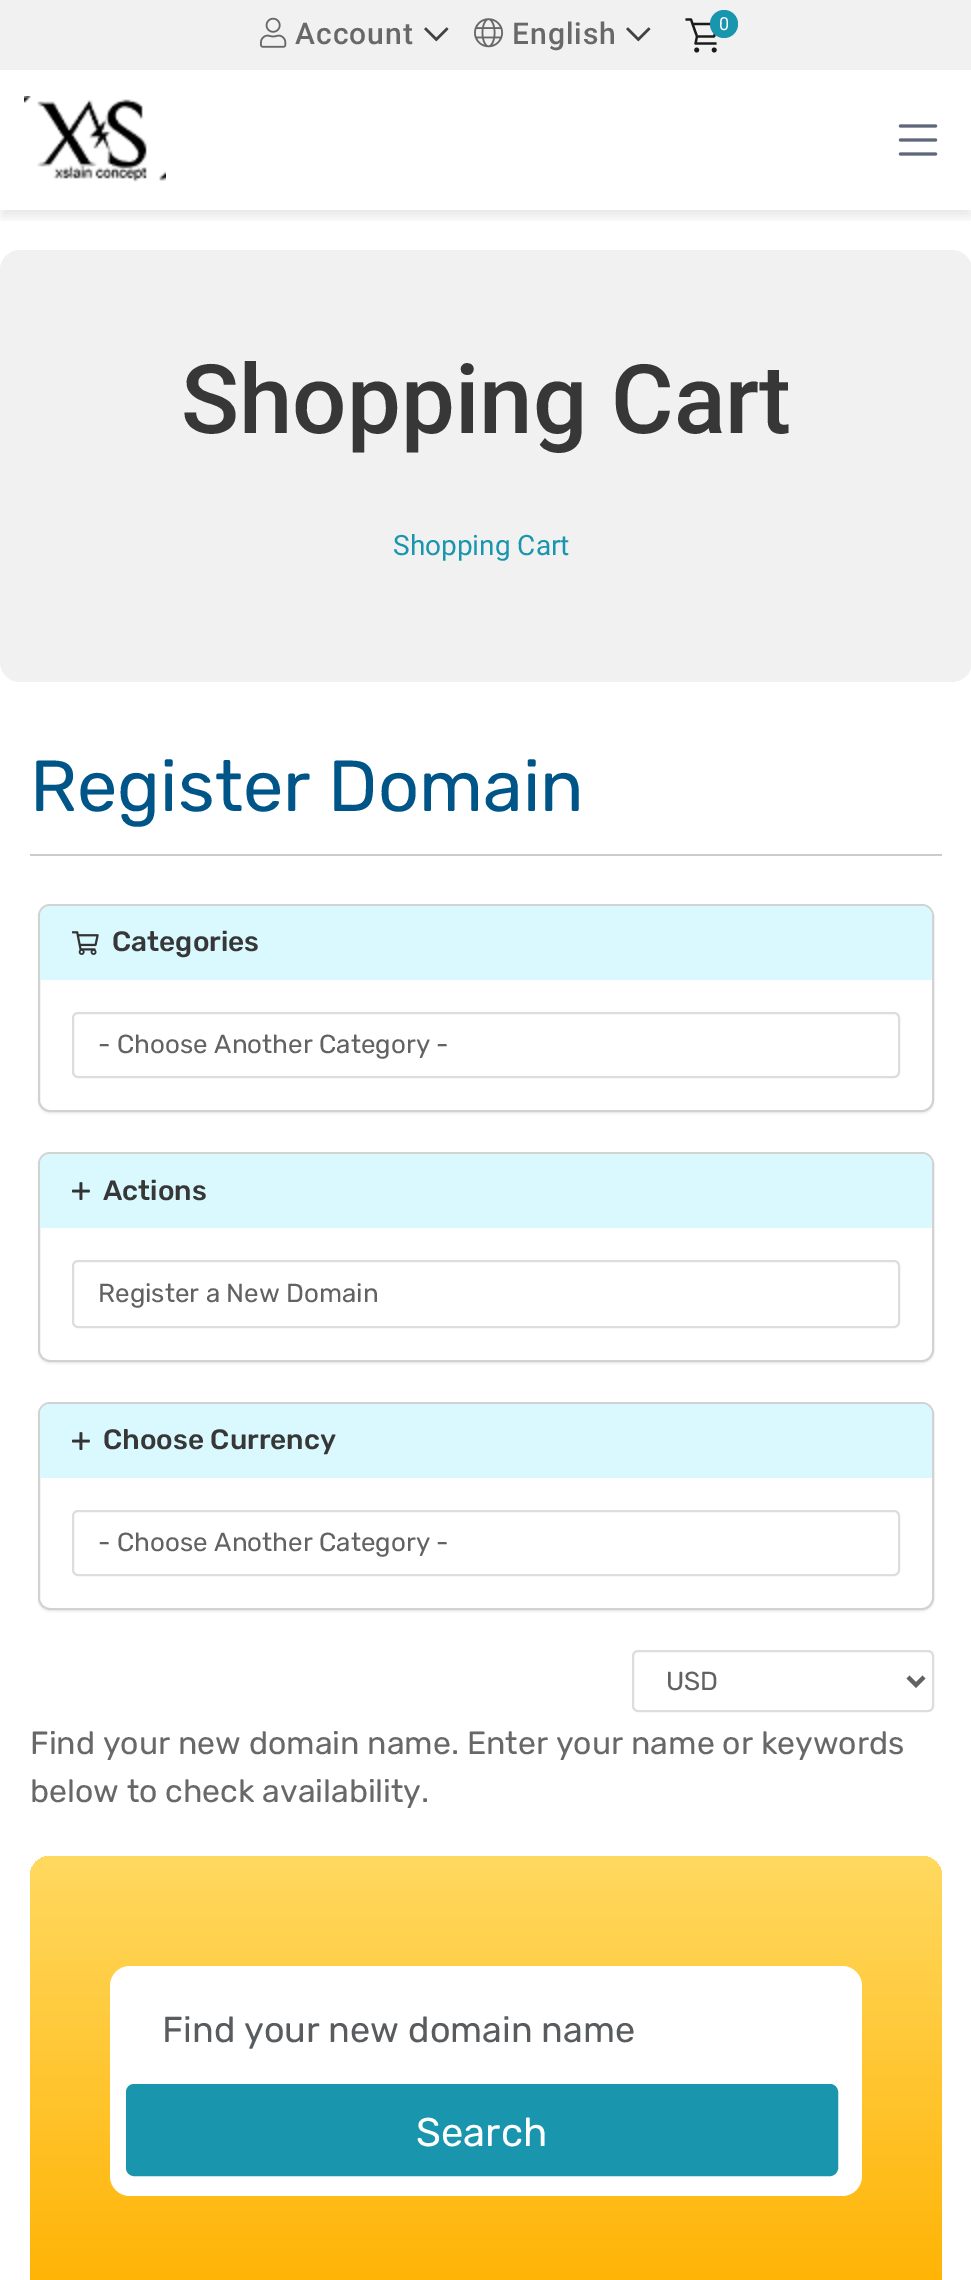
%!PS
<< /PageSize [971 2280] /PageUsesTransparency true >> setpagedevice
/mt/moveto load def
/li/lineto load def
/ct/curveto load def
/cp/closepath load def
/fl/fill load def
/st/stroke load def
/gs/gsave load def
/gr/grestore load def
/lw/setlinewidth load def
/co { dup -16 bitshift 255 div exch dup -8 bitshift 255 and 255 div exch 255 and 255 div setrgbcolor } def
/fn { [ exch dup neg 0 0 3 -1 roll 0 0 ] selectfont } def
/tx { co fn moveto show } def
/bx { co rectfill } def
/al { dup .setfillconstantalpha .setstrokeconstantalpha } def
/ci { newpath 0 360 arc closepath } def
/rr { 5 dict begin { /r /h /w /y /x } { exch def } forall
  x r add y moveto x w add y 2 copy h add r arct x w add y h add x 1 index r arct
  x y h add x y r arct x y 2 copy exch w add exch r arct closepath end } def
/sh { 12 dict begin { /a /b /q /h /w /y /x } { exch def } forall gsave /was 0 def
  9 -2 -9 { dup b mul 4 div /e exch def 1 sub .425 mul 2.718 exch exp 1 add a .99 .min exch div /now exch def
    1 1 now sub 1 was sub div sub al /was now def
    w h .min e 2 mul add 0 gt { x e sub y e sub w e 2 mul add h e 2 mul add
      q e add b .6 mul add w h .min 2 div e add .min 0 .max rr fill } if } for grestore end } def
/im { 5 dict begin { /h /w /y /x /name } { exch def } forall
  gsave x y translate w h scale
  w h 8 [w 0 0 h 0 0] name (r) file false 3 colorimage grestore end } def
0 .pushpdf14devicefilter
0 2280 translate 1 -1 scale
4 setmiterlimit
0 0 971 2280 16#FFFFFF bx
0 0 971 70 16#F1F1F2 bx
(media/1.raw) 260 17 27 31 im
(media/2.raw) 424 27 25 15 im
(media/3.raw) 474 18 30 30 im
(media/2.raw) 626 27 25 15 im
16#1B1A19 co
2.2 lw
1 setlinejoin
685.5 19.5 mt 691 19.5 li 697 36.5 li 695.5 43.5 li 716.5 43.5 li 714 36.5 mt 697 36.5 li 692.5 24 li 718.5 24 li cp st
16#1995AD co
724 24 14 ci fl
16#1B1A19 co
696.7 50 2.4 ci fl
714.2 50 2.4 ci fl
gs
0 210 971 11 rectclip
16#000000 co
2 80 968 136 0 6 .1 sh
gr
(media/4.raw) 24 96 142 86 im
(media/5.raw) 898 124 40 32 im
16#F1F1F2 co
0 250 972 432 20 rr fl
30 854 912 2 16#CCCCCC bx
16#000000 co
38 906 896 208 12 1 .05 sh
16#FFFFFF co
39 905 894 206 11 rr gs fl gr
16#D2D2D2 co
2 lw
0 setlinejoin
st
16#D9F9FF co
50 906 mt 922 906 li 927.5 906 932 910.5 932 916 ct 932 980 li 40 980 li 40 916 li 40 910.5 44.5 906 50 906 ct cp fl
(media/6.raw) 72 931 27 24 im
16#DDDDDD co
73 1013 826 64 5 rr st
16#000000 co
38 1154 896 210 12 1 .05 sh
16#FFFFFF co
39 1153 894 208 11 rr gs fl gr
16#D2D2D2 co
st
16#D9F9FF co
50 1154 mt 922 1154 li 927.5 1154 932 1158.5 932 1164 ct 932 1228 li 40 1228 li 40 1164 li 40 1158.5 44.5 1154 50 1154 ct cp fl
(media/7.raw) 72 1182 18 18 im
16#DDDDDD co
73 1261 826 66 5 rr st
16#000000 co
38 1404 896 208 12 1 .05 sh
16#FFFFFF co
39 1403 894 206 11 rr gs fl gr
16#D2D2D2 co
st
16#D9F9FF co
50 1404 mt 922 1404 li 927.5 1404 932 1408.5 932 1414 ct 932 1478 li 40 1478 li 40 1414 li 40 1408.5 44.5 1404 50 1404 ct cp fl
(media/7.raw) 72 1432 18 18 im
16#DDDDDD co
73 1511 826 64 5 rr st
633 1651 300 60 5 rr st
16#626262 co
4 lw
908 1677 mt 916 1685 li 924 1677 li st
gs 30 1856 912 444 20 rr clip newpath
<< /ShadingType 2 /ColorSpace /DeviceRGB /Coords [486 1856 486 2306] /Extend [true true] /Function << /FunctionType 2 /Domain [0 1] /C0 [1 .851 .376] /C1 [1 .698 .004] /N 1 >> >> shfill gr
16#FFFFFF co
110 1966 752 230 20 rr fl
16#1995AD co
127 2085 710 90 7 rr gs fl gr
2 lw
st
/Roboto-Medium 30 fn
16#686868 co
295 44 mt 1 0 (Account) ashow
512 44 mt 1 0 (English) ashow
(0) 719 30 /Roboto-Regular 18 16#FFFFFF tx
(Shopping Cart) 181 433 /Roboto-Medium 96 16#373737 tx
(Shopping Cart) 393 555 /Roboto-Regular 28 16#1995AD tx
(Register Domain) 30 811 /Rubik-Regular 72 16#005588 tx
(Categories) 112 951 /Rubik-Medium 28 16#373737 tx
(- Choose Another Category -) 98 1053 /Rubik-Regular 26 16#626262 tx
(Actions) 103 1200 /Rubik-Medium 28 16#373737 tx
(Register a New Domain) 98 1302 /Rubik-Regular 26 16#626262 tx
(Choose Currency) 103 1449 /Rubik-Medium 28 16#373737 tx
(- Choose Another Category -) 98 1551 /Rubik-Regular 26 16#626262 tx
(USD) 666 1690 /Rubik-Regular 26 16#626262 tx
(Find your new domain name. Enter your name or keywords) 30 1754 /Rubik-Regular 32 16#686868 tx
(below to check availability.) 30 1802 /Rubik-Regular 32 16#686868 tx
(Find your new domain name) 162 2042 /Rubik-Regular 36 16#595C5F tx
(Search) 416 2146 /Rubik-Regular 40 16#FFFFFF tx
.poppdf14devicefilter showpage
